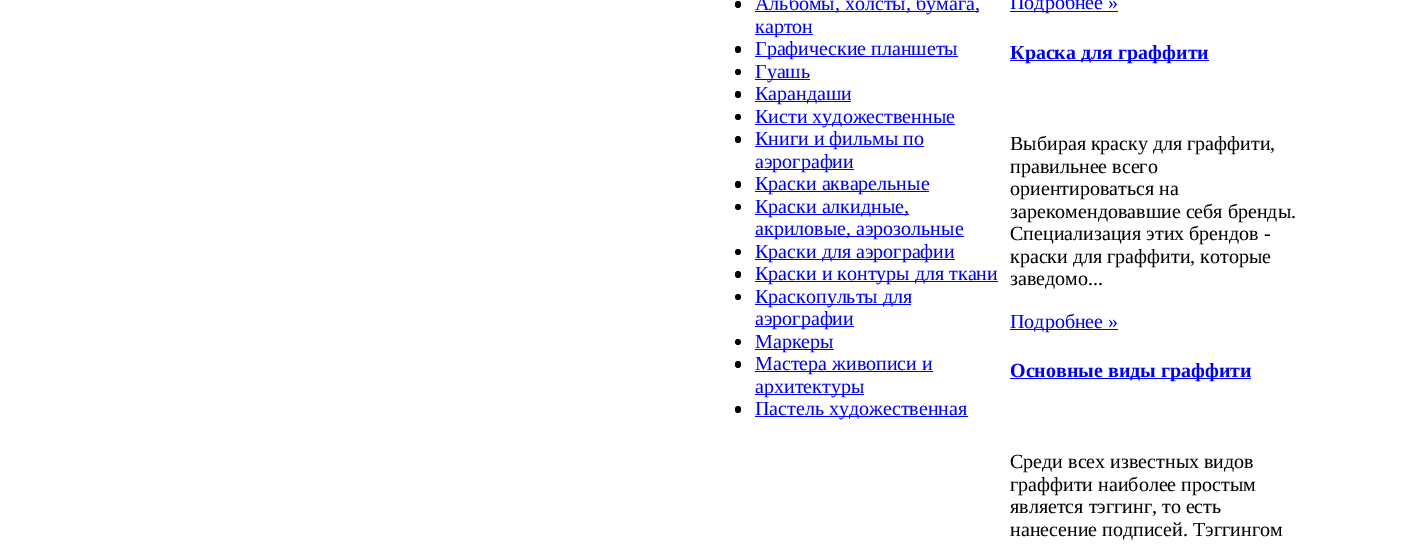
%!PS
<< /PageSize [1409 545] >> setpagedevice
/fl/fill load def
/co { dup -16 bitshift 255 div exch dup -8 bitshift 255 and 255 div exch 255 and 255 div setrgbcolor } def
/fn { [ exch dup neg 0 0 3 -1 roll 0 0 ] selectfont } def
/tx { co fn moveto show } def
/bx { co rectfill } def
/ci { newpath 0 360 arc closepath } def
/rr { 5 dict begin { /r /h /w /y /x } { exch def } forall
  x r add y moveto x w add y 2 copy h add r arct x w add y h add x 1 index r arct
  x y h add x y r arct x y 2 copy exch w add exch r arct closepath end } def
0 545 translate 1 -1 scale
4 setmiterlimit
0 0 1409 545 16#FFFFFF bx
16#000000 co
735 1 6 7 3 rr fl
755 11 224 1 16#0000EE bx
755 34 58 1 16#0000EE bx
16#000000 co
735 46 6 7 3 rr fl
755 56 203 1 16#0000EE bx
16#000000 co
738 72 3 ci fl
755 79 55 1 16#0000EE bx
16#000000 co
735 91 6 7 3 rr fl
755 101 96 1 16#0000EE bx
16#000000 co
738 117 3 ci fl
755 124 200 1 16#0000EE bx
16#000000 co
735 136 6 7 3 rr fl
755 146 169 1 16#0000EE bx
755 169 99 1 16#0000EE bx
16#000000 co
735 181 6 7 3 rr fl
755 191 174 1 16#0000EE bx
16#000000 co
738 207 3 ci fl
755 214 154 1 16#0000EE bx
755 236 209 1 16#0000EE bx
16#000000 co
738 252 3 ci fl
755 259 200 1 16#0000EE bx
16#000000 co
735 271 6 7 3 rr fl
755 281 243 1 16#0000EE bx
16#000000 co
738 297 3 ci fl
755 304 156 1 16#0000EE bx
755 326 99 1 16#0000EE bx
16#000000 co
738 342 3 ci fl
755 349 79 1 16#0000EE bx
16#000000 co
735 361 6 7 3 rr fl
755 371 178 1 16#0000EE bx
755 394 109 1 16#0000EE bx
16#000000 co
735 406 6 7 3 rr fl
755 416 213 1 16#0000EE bx
1010 11 108 1 16#0000EE bx
1010 60 199 1 16#0000EE bx
1010 329 108 1 16#0000EE bx
1010 378 241 1 16#0000EE bx
(Альбомы, холсты, бумага,) 755 10 /LiberationSerif-Regular 20 16#0000EE tx
(картон) 755 33 /LiberationSerif-Regular 20 16#0000EE tx
(Графические планшеты) 755 55 /LiberationSerif-Regular 20 16#0000EE tx
(Гуашь) 755 78 /LiberationSerif-Regular 20 16#0000EE tx
(Карандаши) 755 100 /LiberationSerif-Regular 20 16#0000EE tx
(Кисти художественные) 755 123 /LiberationSerif-Regular 20 16#0000EE tx
(Книги и фильмы по) 755 145 /LiberationSerif-Regular 20 16#0000EE tx
(аэрографии) 755 168 /LiberationSerif-Regular 20 16#0000EE tx
(Краски акварельные) 755 190 /LiberationSerif-Regular 20 16#0000EE tx
(Краски алкидные,) 755 213 /LiberationSerif-Regular 20 16#0000EE tx
(акриловые, аэрозольные) 755 235 /LiberationSerif-Regular 20 16#0000EE tx
(Краски для аэрографии) 755 258 /LiberationSerif-Regular 20 16#0000EE tx
(Краски и контуры для ткани) 755 280 /LiberationSerif-Regular 20 16#0000EE tx
(Краскопульты для) 755 303 /LiberationSerif-Regular 20 16#0000EE tx
(аэрографии) 755 325 /LiberationSerif-Regular 20 16#0000EE tx
(Маркеры) 755 348 /LiberationSerif-Regular 20 16#0000EE tx
(Мастера живописи и) 755 370 /LiberationSerif-Regular 20 16#0000EE tx
(архитектуры) 755 393 /LiberationSerif-Regular 20 16#0000EE tx
(Пастель художественная) 755 415 /LiberationSerif-Regular 20 16#0000EE tx
(Подробнее ») 1010 9 /LiberationSerif-Regular 20 16#0000EE tx
(Краска для граффити) 1010 59 /LiberationSerif-Bold 20 16#0000EE tx
(Выбирая краску для граффити,) 1010 150 /LiberationSerif-Regular 20 16#000000 tx
(правильнее всего) 1010 173 /LiberationSerif-Regular 20 16#000000 tx
(ориентироваться на) 1010 195 /LiberationSerif-Regular 20 16#000000 tx
(зарекомендовавшие себя бренды.) 1010 218 /LiberationSerif-Regular 20 16#000000 tx
(Специализация этих брендов -) 1010 240 /LiberationSerif-Regular 20 16#000000 tx
(краски для граффити, которые) 1010 263 /LiberationSerif-Regular 20 16#000000 tx
(заведомо...) 1010 285 /LiberationSerif-Regular 20 16#000000 tx
(Подробнее ») 1010 328 /LiberationSerif-Regular 20 16#0000EE tx
(Основные виды граффити) 1010 377 /LiberationSerif-Bold 20 16#0000EE tx
(Среди всех известных видов) 1010 468 /LiberationSerif-Regular 20 16#000000 tx
(граффити наиболее простым) 1010 491 /LiberationSerif-Regular 20 16#000000 tx
(является тэггинг, то есть) 1010 513 /LiberationSerif-Regular 20 16#000000 tx
(нанесение подписей. Тэггингом) 1010 536 /LiberationSerif-Regular 20 16#000000 tx
showpage
